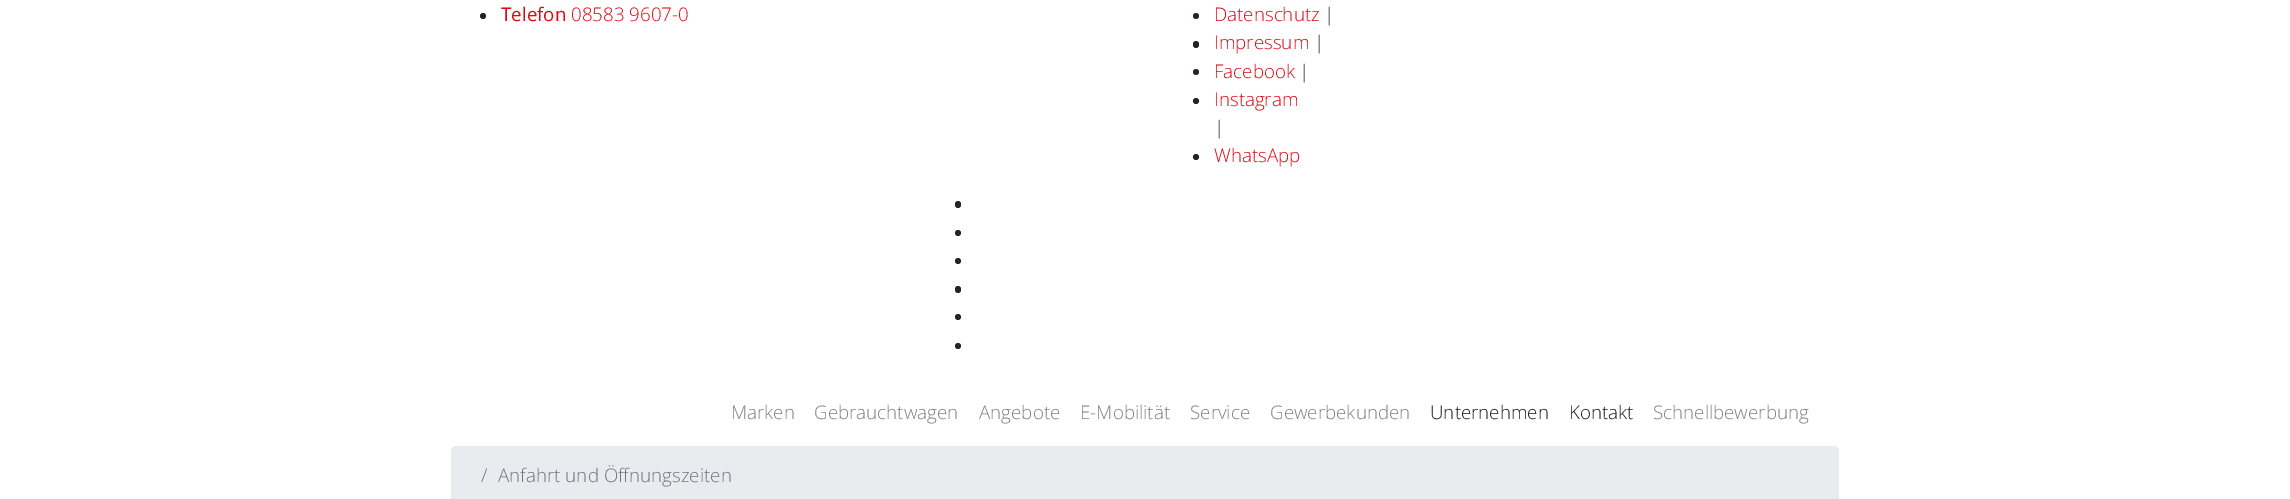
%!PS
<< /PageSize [2290 499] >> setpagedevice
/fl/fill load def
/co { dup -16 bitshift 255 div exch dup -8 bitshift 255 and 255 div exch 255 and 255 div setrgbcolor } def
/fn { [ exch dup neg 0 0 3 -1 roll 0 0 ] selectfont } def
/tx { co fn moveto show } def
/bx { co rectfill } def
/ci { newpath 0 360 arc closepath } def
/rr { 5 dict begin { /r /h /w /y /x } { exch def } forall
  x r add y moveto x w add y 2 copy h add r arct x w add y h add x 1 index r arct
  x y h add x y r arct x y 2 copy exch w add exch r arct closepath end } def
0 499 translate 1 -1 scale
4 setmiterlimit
0 0 2290 499 16#FFFFFF bx
16#212529 co
483 16 3 ci fl
1196 16 3 ci fl
1193 41 6 7 3 rr fl
1196 72 3 ci fl
1196 101 3 ci fl
1196 157 3 ci fl
955 201 6 7 3 rr fl
958 233 3 ci fl
958 261 3 ci fl
955 286 6 7 3 rr fl
958 317 3 ci fl
958 346 3 ci fl
16#E9ECEF co
451 446 1388 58 5 rr fl
(Telefon) 501 21 /OpenSans-Regular 18.75 16#E20613 tx
(08583 9607-0) 571 21 /OpenSans-Light 18.75 16#E20613 tx
(Datenschutz) 1214 21 /OpenSans-Light 18.75 16#E20613 tx
(|) 1324 21 /OpenSans-Light 18.75 16#212529 tx
(Impressum) 1214 49 /OpenSans-Light 18.75 16#E20613 tx
(|) 1314 49 /OpenSans-Light 18.75 16#212529 tx
(Facebook) 1214 78 /OpenSans-Light 18.75 16#E20613 tx
(|) 1299 78 /OpenSans-Light 18.75 16#212529 tx
(Instagram) 1214 106 /OpenSans-Light 18.75 16#E20613 tx
(|) 1214 134 /OpenSans-Light 18.75 16#212529 tx
(WhatsApp) 1214 162 /OpenSans-Light 18.75 16#E20613 tx
(Marken) 731 419 /OpenSans-Light 18.75 16#808080 tx
(Gebrauchtwagen) 814 419 /OpenSans-Light 18.75 16#808080 tx
(Angebote) 979 419 /OpenSans-Light 18.75 16#808080 tx
(E-Mobilität) 1080 419 /OpenSans-Light 18.75 16#808080 tx
(Service) 1190 419 /OpenSans-Light 18.75 16#808080 tx
(Gewerbekunden) 1270 419 /OpenSans-Light 18.75 16#808080 tx
(Unternehmen) 1430 419 /OpenSans-Light 18.75 16#1A1A1A tx
(Kontakt) 1569 419 /OpenSans-Light 18.75 16#1A1A1A tx
(Schnellbewerbung) 1653 419 /OpenSans-Light 18.75 16#808080 tx
(/) 481 482 /OpenSans-Light 18.75 16#6C757D tx
(Anfahrt und Öffnungszeiten) 498 482 /OpenSans-Light 18.75 16#6C757D tx
showpage
